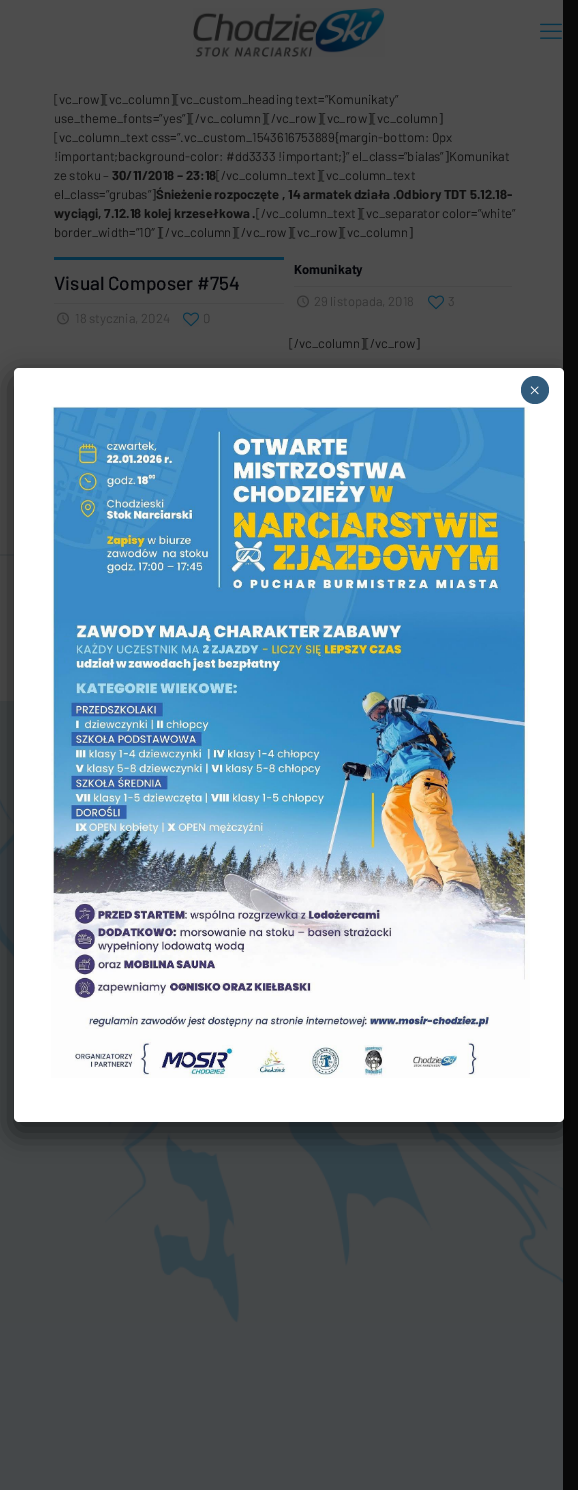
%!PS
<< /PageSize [578 1490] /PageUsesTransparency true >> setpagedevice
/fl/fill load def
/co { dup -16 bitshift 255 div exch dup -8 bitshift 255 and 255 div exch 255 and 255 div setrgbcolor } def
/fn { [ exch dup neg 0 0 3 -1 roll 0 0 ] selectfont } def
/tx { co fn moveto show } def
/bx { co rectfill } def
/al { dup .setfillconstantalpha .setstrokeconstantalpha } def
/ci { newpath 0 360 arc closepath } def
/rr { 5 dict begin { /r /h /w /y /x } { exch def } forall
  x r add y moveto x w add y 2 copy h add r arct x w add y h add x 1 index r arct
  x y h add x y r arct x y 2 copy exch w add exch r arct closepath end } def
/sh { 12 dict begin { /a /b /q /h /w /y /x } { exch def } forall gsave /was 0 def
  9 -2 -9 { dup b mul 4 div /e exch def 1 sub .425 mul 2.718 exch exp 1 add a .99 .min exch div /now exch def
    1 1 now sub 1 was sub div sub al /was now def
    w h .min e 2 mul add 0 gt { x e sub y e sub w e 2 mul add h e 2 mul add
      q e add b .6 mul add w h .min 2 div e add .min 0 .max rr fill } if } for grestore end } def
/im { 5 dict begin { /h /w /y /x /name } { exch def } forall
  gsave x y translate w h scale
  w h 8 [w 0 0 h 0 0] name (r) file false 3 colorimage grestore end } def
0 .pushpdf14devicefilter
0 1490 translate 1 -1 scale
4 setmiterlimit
0 0 578 1490 16#45484A bx
(media/1.raw) 0 701 563 622 im
0 0 563 701 16#4D4D4D bx
(media/2.raw) 193 8 192 49 im
(media/3.raw) 540 23 22 16 im
54 257 230 3 16#063349 bx
54 303 230 1 16#474747 bx
(media/4.raw) 57 312 12 13 im
(media/5.raw) 183 312 16 15 im
294 286 218 1 16#474747 bx
(media/4.raw) 297 295 12 13 im
(media/5.raw) 428 295 16 15 im
0 554 14 2 16#464849 bx
563 0 15 1490 16#080808 bx
16#020202 co
10 374 558 762 9 12.5 .5 sh
16#FFFFFF co
14 368 550 754 5 rr fl
16#315B7C co
535 390 14 ci fl
(media/6.raw) 51 406 479 672 im
([vc_row][vc_column][vc_custom_heading text=”Komunikaty”) 54 104 /Barlow-Regular 13 16#101010 tx
(use_theme_fonts=”yes”][/vc_column][/vc_row][vc_row][vc_column]) 54 123 /Barlow-Regular 13 16#101010 tx
([vc_column_text css=”.vc_custom_1543616753889{margin-bottom: 0px) 54 142 /Barlow-Regular 13 16#101010 tx
(!important;background-color: #dd3333 !important;}” el_class=”bialas”]Komunikat) 54 161 /Barlow-Regular 13 16#101010 tx
(ze stoku –) 54 180 /Barlow-Regular 13 16#101010 tx
(30/11/2018 – 23:18) 112 180 /Barlow-Bold 13 16#101010 tx
([/vc_column_text][vc_column_text) 216 180 /Barlow-Regular 13 16#101010 tx
(el_class=”grubas”]) 54 199 /Barlow-Regular 13 16#101010 tx
(Śnieżenie rozpoczęte , 14 armatek działa .Odbiory TDT 5.12.18-) 156 199 /Barlow-Bold 13 16#101010 tx
(wyciągi, 7.12.18 kolej krzesełkowa .) 54 218 /Barlow-Bold 13 16#101010 tx
([/vc_column_text][vc_separator color=”white”) 256 218 /Barlow-Regular 13 16#101010 tx
(border_width=”10″][/vc_column][/vc_row][vc_row][vc_column]) 54 237 /Barlow-Regular 13 16#101010 tx
(Visual Composer #754) 54 290 /Barlow-Medium 19 16#040509 tx
(18 stycznia, 2024) 75 323 /Barlow-Regular 13 16#323232 tx
(0) 203 323 /Barlow-Regular 13 16#323232 tx
(Komunikaty) 294 274 /Barlow-Bold 13 16#040509 tx
(29 listopada, 2018) 314 306 /Barlow-Regular 13 16#323232 tx
(3) 448 306 /Barlow-Regular 13 16#323232 tx
([/vc_column][/vc_row]) 289 348 /Barlow-Regular 13 16#101010 tx
(×) 529 397 /LiberationSerif-Regular 20 16#FFFFFF tx
.poppdf14devicefilter showpage
